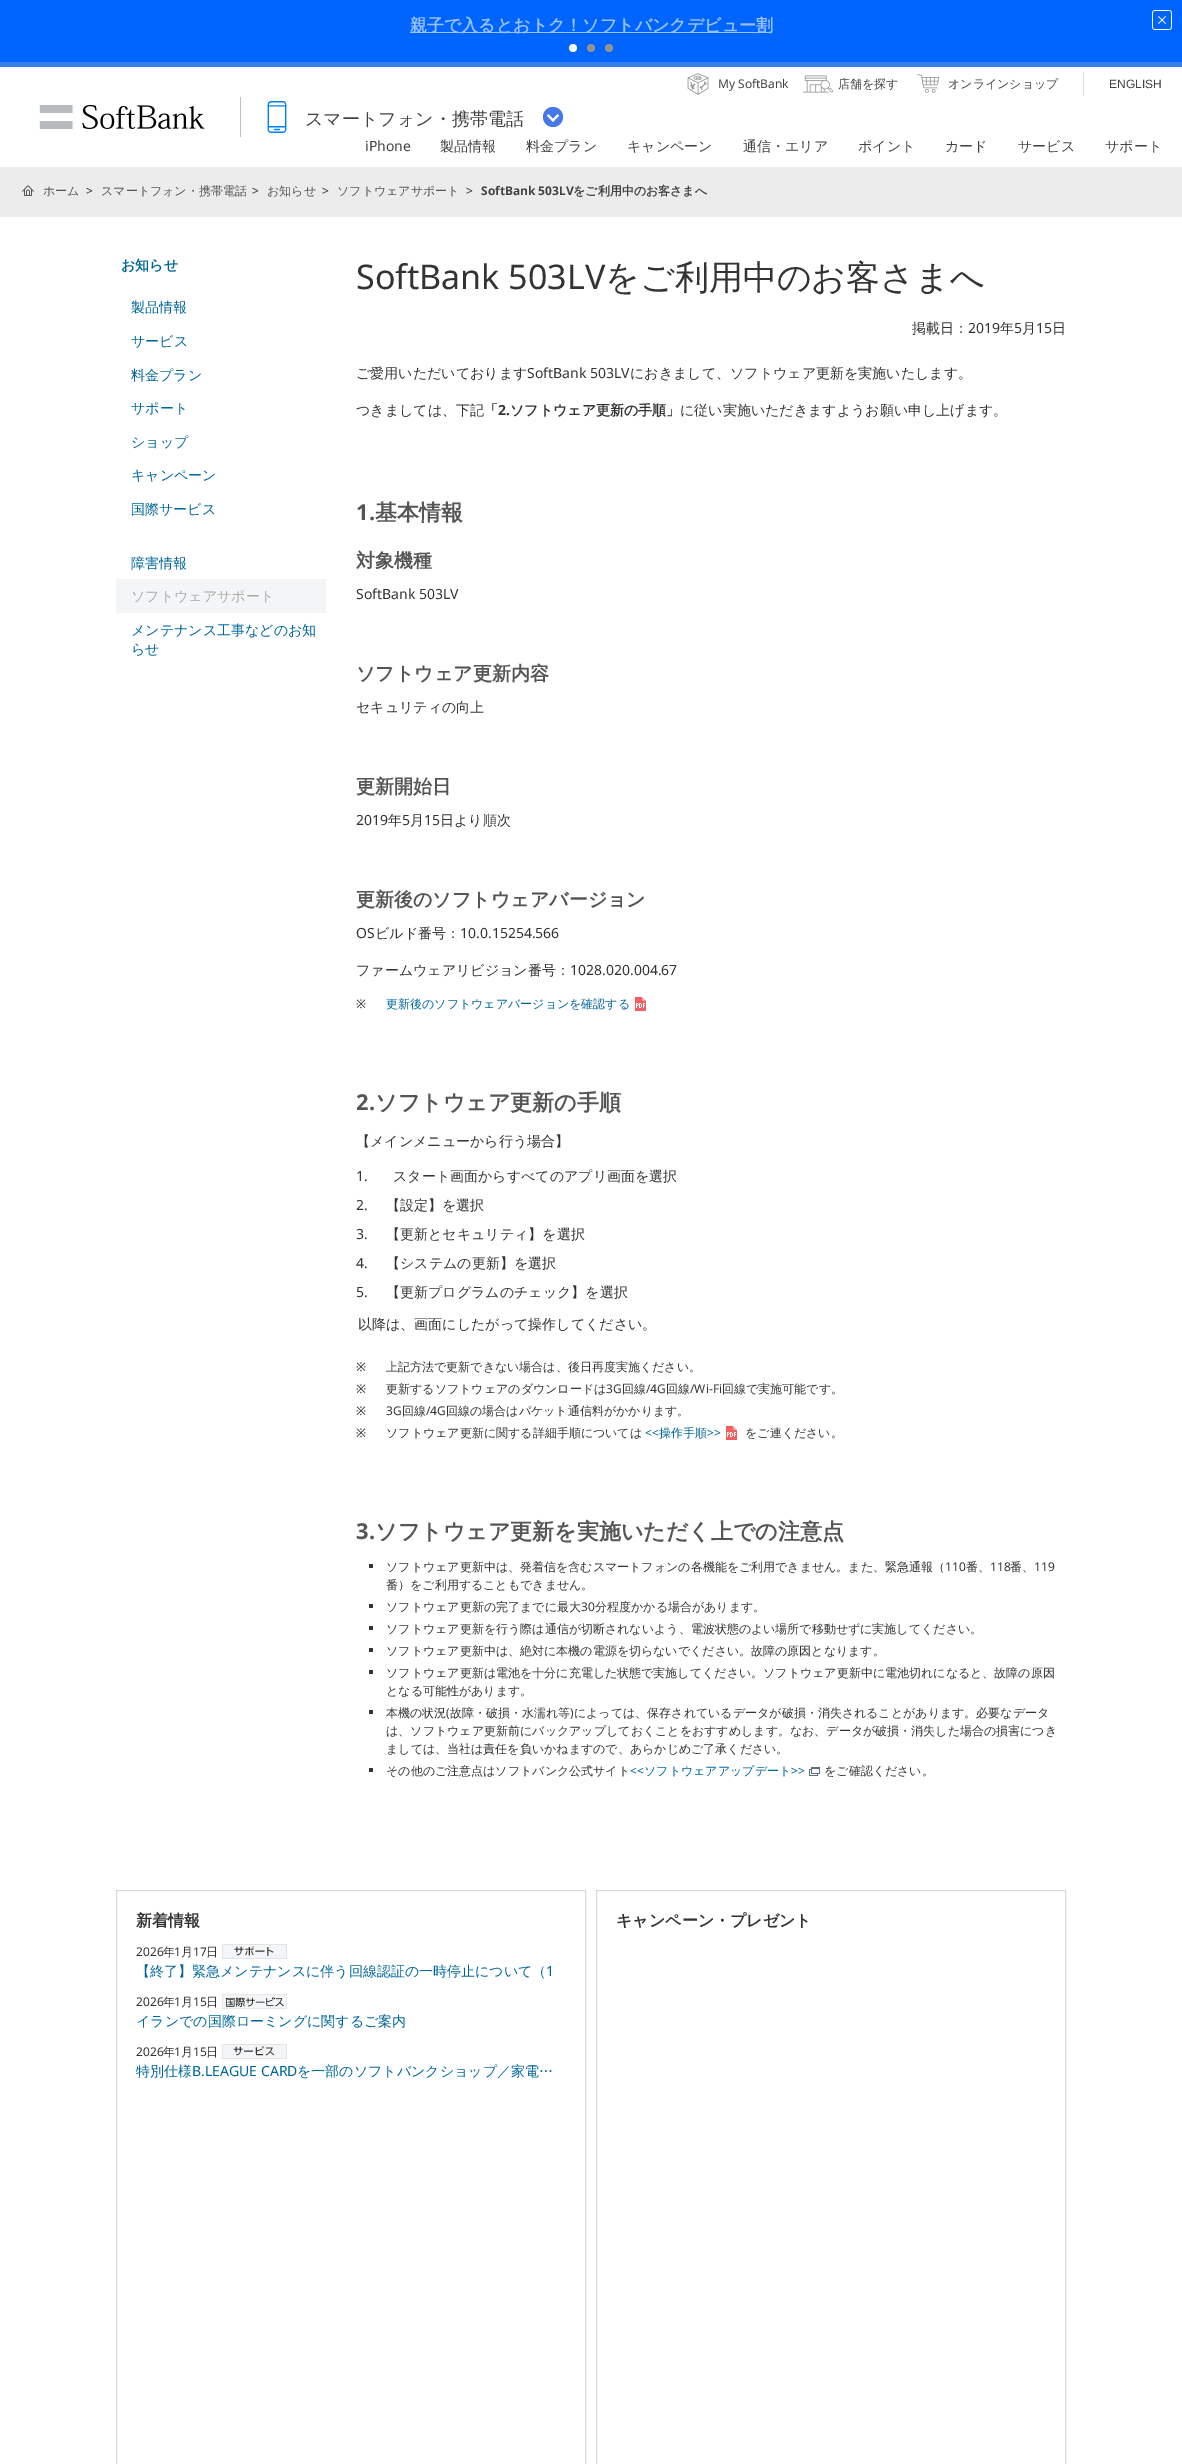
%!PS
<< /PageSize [1182 2464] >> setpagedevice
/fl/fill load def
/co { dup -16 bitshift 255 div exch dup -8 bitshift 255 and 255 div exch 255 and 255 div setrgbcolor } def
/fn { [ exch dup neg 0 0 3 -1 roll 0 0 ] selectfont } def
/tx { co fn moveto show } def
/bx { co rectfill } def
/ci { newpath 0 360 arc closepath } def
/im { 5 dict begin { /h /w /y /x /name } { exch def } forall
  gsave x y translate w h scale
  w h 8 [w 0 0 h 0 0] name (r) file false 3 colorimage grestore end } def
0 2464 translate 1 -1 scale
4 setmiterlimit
0 0 1182 2464 16#FFFFFF bx
0 0 1182 62 16#0064FF bx
410 32 362 1 16#99C1FF bx
(media/1.raw) 1152 10 20 20 im
16#FFFFFF co
573 48 4 ci fl
16#919191 co
591 48 4 ci fl
609 48 4 ci fl
0 62 1182 5 16#357EEC bx
(media/2.raw) 687 73 22 22 im
(media/3.raw) 803 75 30 18 im
(media/4.raw) 917 74 22 19 im
1083 72 1 24 16#D5DDE5 bx
(media/5.raw) 39 104 166 26 im
240 97 1 40 16#BFBFC0 bx
(media/6.raw) 267 101 20 32 im
16#4579E8 co
553 117 10 ci fl
(media/7.raw) 547 114 12 8 im
0 167 1182 50 16#ECECEC bx
(media/8.raw) 22 185 12 11 im
116 579 210 34 16#F4F5F6 bx
(media/9.raw) 635 997 11 14 im
(media/9.raw) 726 1426 11 14 im
369 1564 4 4 16#333333 bx
369 1604 4 4 16#333333 bx
369 1626 4 4 16#333333 bx
369 1648 4 4 16#333333 bx
369 1670 4 4 16#333333 bx
369 1710 4 4 16#333333 bx
369 1768 4 4 16#333333 bx
(media/10.raw) 809 1767 11 9 im
16#D8DADC co
116.5 1890.5 469 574 rectstroke
(media/11.raw) 222 1944 65 15 im
(media/12.raw) 222 1994 65 15 im
(media/13.raw) 222 2044 65 15 im
596.5 1890.5 469 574 rectstroke
(親子で入るとおトク！ソフトバンクデビュー割) 410 31 /WenQuanYiZenHei-Bold 17 16#99C1FF tx
(My SoftBank) 718 88 /NotoSans-Regular 12 16#424242 tx
(店舗を探す) 838 88 /WenQuanYiZenHei-Medium 12 16#424242 tx
(オンラインショップ) 948 88 /WenQuanYiZenHei-Medium 12 16#424242 tx
(ENGLISH) 1109 88 /LiberationSans-Regular 12 16#424242 tx
(スマートフォン・携帯電話) 305 125 /WenQuanYiZenHei-Medium 18 16#424242 tx
(iPhone) 365 151 /NotoSans-Regular 14 16#424242 tx
(製品情報) 440 151 /WenQuanYiZenHei-Medium 14 16#424242 tx
(料金プラン) 526 151 /WenQuanYiZenHei-Medium 14 16#424242 tx
(キャンペーン) 627 151 /WenQuanYiZenHei-Medium 14 16#424242 tx
(通信・エリア) 743 151 /WenQuanYiZenHei-Medium 14 16#424242 tx
(ポイント) 858 151 /WenQuanYiZenHei-Medium 14 16#424242 tx
(カード) 945 151 /WenQuanYiZenHei-Medium 14 16#424242 tx
(サービス) 1018 151 /WenQuanYiZenHei-Medium 14 16#424242 tx
(サポート) 1105 151 /WenQuanYiZenHei-Medium 14 16#424242 tx
(ホーム) 43 195 /WenQuanYiZenHei-Medium 12 16#555555 tx
(>) 86 195 /NotoSans-Regular 12 16#333333 tx
(スマートフォン・携帯電話) 101 195 /WenQuanYiZenHei-Medium 12 16#555555 tx
(>) 252 195 /NotoSans-Regular 12 16#333333 tx
(お知らせ) 267 195 /WenQuanYiZenHei-Medium 12 16#555555 tx
(>) 322 195 /NotoSans-Regular 12 16#333333 tx
(ソフトウェアサポート) 337 195 /WenQuanYiZenHei-Medium 12 16#555555 tx
(>) 466 195 /NotoSans-Regular 12 16#333333 tx
(SoftBank 503LV) 481 195 /NotoSans-Bold 12 16#424242 tx
(をご利用中のお客さまへ) 573 195 /WenQuanYiZenHei-Bold 12 16#424242 tx
(お知らせ) 121 270 /WenQuanYiZenHei-Bold 14 16#006699 tx
(製品情報) 131 312 /WenQuanYiZenHei-Medium 14 16#006699 tx
(サービス) 131 346 /WenQuanYiZenHei-Medium 14 16#006699 tx
(料金プラン) 131 380 /WenQuanYiZenHei-Medium 14 16#006699 tx
(サポート) 131 413 /WenQuanYiZenHei-Medium 14 16#006699 tx
(ショップ) 131 447 /WenQuanYiZenHei-Medium 14 16#006699 tx
(キャンペーン) 131 480 /WenQuanYiZenHei-Medium 14 16#006699 tx
(国際サービス) 131 514 /WenQuanYiZenHei-Medium 14 16#006699 tx
(障害情報) 131 568 /WenQuanYiZenHei-Medium 14 16#006699 tx
(ソフトウェアサポート) 131 601 /WenQuanYiZenHei-Medium 14 16#AAAAAA tx
(メンテナンス工事などのお知) 131 635 /WenQuanYiZenHei-Medium 14 16#006699 tx
(らせ) 131 654 /WenQuanYiZenHei-Medium 14 16#006699 tx
(SoftBank 503LV) 356 289 /NotoSans-Regular 34 16#333333 tx
(をご利用中のお客さまへ) 605 289 /WenQuanYiZenHei-Medium 34 16#333333 tx
(掲載日：) 912 333 /WenQuanYiZenHei-Medium 14 16#333333 tx
(2019) 968 333 /NotoSans-Regular 14 16#333333 tx
(年) 1000 333 /WenQuanYiZenHei-Medium 14 16#333333 tx
(5) 1014 333 /NotoSans-Regular 14 16#333333 tx
(月) 1022 333 /WenQuanYiZenHei-Medium 14 16#333333 tx
(15) 1036 333 /NotoSans-Regular 14 16#333333 tx
(日) 1052 333 /WenQuanYiZenHei-Medium 14 16#333333 tx
(ご愛用いただいております) 356 378 /WenQuanYiZenHei-Medium 14 16#333333 tx
(SoftBank 503LV) 527 378 /NotoSans-Regular 14 16#333333 tx
(におきまして、ソフトウェア更新を実施いたします。) 630 378 /WenQuanYiZenHei-Medium 14 16#333333 tx
(つきましては、下記) 356 415 /WenQuanYiZenHei-Medium 14 16#333333 tx
(「) 484 415 /WenQuanYiZenHei-Bold 14 16#333333 tx
(2.) 498 415 /NotoSans-Bold 14 16#333333 tx
(ソフトウェア更新の手順」) 510 415 /WenQuanYiZenHei-Bold 14 16#333333 tx
(に従い実施いただきますようお願い申し上げます。) 680 415 /WenQuanYiZenHei-Medium 14 16#333333 tx
(1.) 356 520 /NotoSans-Bold 22 16#555555 tx
(基本情報) 375 520 /WenQuanYiZenHei-Bold 22 16#555555 tx
(対象機種) 356 567 /WenQuanYiZenHei-Bold 19 16#555555 tx
(SoftBank 503LV) 356 599 /NotoSans-Regular 14 16#333333 tx
(ソフトウェア更新内容) 356 680 /WenQuanYiZenHei-Bold 19 16#555555 tx
(セキュリティの向上) 356 712 /WenQuanYiZenHei-Medium 14 16#333333 tx
(更新開始日) 356 793 /WenQuanYiZenHei-Bold 19 16#555555 tx
(2019) 356 825 /NotoSans-Regular 14 16#333333 tx
(年) 388 825 /WenQuanYiZenHei-Medium 14 16#333333 tx
(5) 402 825 /NotoSans-Regular 14 16#333333 tx
(月) 410 825 /WenQuanYiZenHei-Medium 14 16#333333 tx
(15) 424 825 /NotoSans-Regular 14 16#333333 tx
(日より順次) 440 825 /WenQuanYiZenHei-Medium 14 16#333333 tx
(更新後のソフトウェアバージョン) 356 906 /WenQuanYiZenHei-Bold 19 16#555555 tx
(OS) 356 938 /NotoSans-Regular 14 16#333333 tx
(ビルド番号：) 375 938 /WenQuanYiZenHei-Medium 14 16#333333 tx
(10.0.15254.566) 460 938 /NotoSans-Regular 14 16#333333 tx
(ファームウェアリビジョン番号：) 356 975 /WenQuanYiZenHei-Medium 14 16#333333 tx
(1028.020.004.67) 570 975 /NotoSans-Regular 14 16#333333 tx
(※) 356 1008 /NotoSans-Regular 12 16#333333 tx
(更新後のソフトウェアバージョンを確認する) 386 1008 /WenQuanYiZenHei-Medium 12 16#006699 tx
(2.) 356 1110 /NotoSans-Bold 22 16#555555 tx
(ソフトウェア更新の手順) 375 1110 /WenQuanYiZenHei-Bold 22 16#555555 tx
(【メインメニューから行う場合】) 356 1146 /WenQuanYiZenHei-Medium 14 16#333333 tx
(1.) 356 1181 /NotoSans-Regular 14 16#333333 tx
(スタート画面からすべてのアプリ画面を選択) 393 1181 /WenQuanYiZenHei-Medium 14 16#333333 tx
(2.) 356 1210 /NotoSans-Regular 14 16#333333 tx
(【設定】を選択) 386 1210 /WenQuanYiZenHei-Medium 14 16#333333 tx
(3.) 356 1239 /NotoSans-Regular 14 16#333333 tx
(【更新とセキュリティ】を選択) 386 1239 /WenQuanYiZenHei-Medium 14 16#333333 tx
(4.) 356 1268 /NotoSans-Regular 14 16#333333 tx
(【システムの更新】を選択) 386 1268 /WenQuanYiZenHei-Medium 14 16#333333 tx
(5.) 356 1297 /NotoSans-Regular 14 16#333333 tx
(【更新プログラムのチェック】を選択) 386 1297 /WenQuanYiZenHei-Medium 14 16#333333 tx
(以降は、画面にしたがって操作してください。) 358 1329 /WenQuanYiZenHei-Medium 14 16#333333 tx
(※) 356 1371 /NotoSans-Regular 12 16#333333 tx
(上記方法で更新できない場合は、後日再度実施ください。) 386 1371 /WenQuanYiZenHei-Medium 12 16#333333 tx
(※) 356 1393 /NotoSans-Regular 12 16#333333 tx
(更新するソフトウェアのダウンロードは) 386 1393 /WenQuanYiZenHei-Medium 12 16#333333 tx
(3G) 606 1393 /NotoSans-Regular 12 16#333333 tx
(回線) 622 1393 /WenQuanYiZenHei-Medium 12 16#333333 tx
(/4G) 646 1393 /NotoSans-Regular 12 16#333333 tx
(回線) 666 1393 /WenQuanYiZenHei-Medium 12 16#333333 tx
(/Wi-Fi) 690 1393 /NotoSans-Regular 12 16#333333 tx
(回線で実施可能です。) 722 1393 /WenQuanYiZenHei-Medium 12 16#333333 tx
(※) 356 1415 /NotoSans-Regular 12 16#333333 tx
(3G) 386 1415 /NotoSans-Regular 12 16#333333 tx
(回線) 402 1415 /WenQuanYiZenHei-Medium 12 16#333333 tx
(/4G) 426 1415 /NotoSans-Regular 12 16#333333 tx
(回線の場合はパケット通信料がかかります。) 446 1415 /WenQuanYiZenHei-Medium 12 16#333333 tx
(※) 356 1437 /NotoSans-Regular 12 16#333333 tx
(ソフトウェア更新に関する詳細手順については) 386 1437 /WenQuanYiZenHei-Medium 12 16#333333 tx
(<<) 645 1437 /NotoSans-Regular 12 16#006699 tx
(操作手順) 659 1437 /WenQuanYiZenHei-Medium 12 16#006699 tx
(>>) 707 1437 /NotoSans-Regular 12 16#006699 tx
(をご連ください。) 745 1437 /WenQuanYiZenHei-Medium 12 16#333333 tx
(3.) 356 1539 /NotoSans-Bold 22 16#555555 tx
(ソフトウェア更新を実施いただく上での注意点) 375 1539 /WenQuanYiZenHei-Bold 22 16#555555 tx
(ソフトウェア更新中は、発着信を含むスマートフォンの各機能をご利用できません。また、緊急通報（) 386 1571 /WenQuanYiZenHei-Medium 12 16#333333 tx
(110) 945 1571 /NotoSans-Regular 12 16#333333 tx
(番、) 966 1571 /WenQuanYiZenHei-Medium 12 16#333333 tx
(118) 990 1571 /NotoSans-Regular 12 16#333333 tx
(番、) 1010 1571 /WenQuanYiZenHei-Medium 12 16#333333 tx
(119) 1034 1571 /NotoSans-Regular 12 16#333333 tx
(番）をご利用することもできません。) 386 1589 /WenQuanYiZenHei-Medium 12 16#333333 tx
(ソフトウェア更新の完了までに最大) 386 1611 /WenQuanYiZenHei-Medium 12 16#333333 tx
(30) 581 1611 /NotoSans-Regular 12 16#333333 tx
(分程度かかる場合があります。) 595 1611 /WenQuanYiZenHei-Medium 12 16#333333 tx
(ソフトウェア更新を行う際は通信が切断されないよう、電波状態のよい場所で移動せずに実施してください。) 386 1633 /WenQuanYiZenHei-Medium 12 16#333333 tx
(ソフトウェア更新中は、絶対に本機の電源を切らないでください。故障の原因となります。) 386 1655 /WenQuanYiZenHei-Medium 12 16#333333 tx
(ソフトウェア更新は電池を十分に充電した状態で実施してください。ソフトウェア更新中に電池切れになると、故障の原因) 386 1677 /WenQuanYiZenHei-Medium 12 16#333333 tx
(となる可能性があります。) 386 1695 /WenQuanYiZenHei-Medium 12 16#333333 tx
(本機の状況) 386 1717 /WenQuanYiZenHei-Medium 12 16#333333 tx
(\() 446 1717 /NotoSans-Regular 12 16#333333 tx
(故障・破損・水濡れ等 によっては、保存されているデータが破損・消失されることがあります。必要なデータ) 450 1717 /WenQuanYiZenHei-Medium 12 16#333333 tx
(\)) 570 1717 /NotoSans-Regular 12 16#333333 tx
(は、ソフトウェア更新前にバックアップしておくことをおすすめします。なお、データが破損・消失した場合の損害につき) 386 1735 /WenQuanYiZenHei-Medium 12 16#333333 tx
(ましては、当社は責任を負いかねますので、あらかじめご了承ください。) 386 1753 /WenQuanYiZenHei-Medium 12 16#333333 tx
(その他のご注意点はソフトバンク公式サイト) 386 1775 /WenQuanYiZenHei-Medium 12 16#333333 tx
(<<) 630 1775 /NotoSans-Regular 12 16#006699 tx
(ソフトウェアアップデート) 644 1775 /WenQuanYiZenHei-Medium 12 16#006699 tx
(>>) 791 1775 /NotoSans-Regular 12 16#006699 tx
(をご確認ください。) 824 1775 /WenQuanYiZenHei-Medium 12 16#333333 tx
(新着情報) 136 1926 /WenQuanYiZenHei-Bold 16 16#333333 tx
(2026) 136 1956 /NotoSans-Regular 12 16#333333 tx
(年) 163 1956 /WenQuanYiZenHei-Medium 12 16#333333 tx
(1) 174 1956 /NotoSans-Regular 12 16#333333 tx
(月) 181 1956 /WenQuanYiZenHei-Medium 12 16#333333 tx
(17) 193 1956 /NotoSans-Regular 12 16#333333 tx
(日) 206 1956 /WenQuanYiZenHei-Medium 12 16#333333 tx
(【終了】緊急メンテナンスに伴う回線認証の一時停止について（) 136 1976 /WenQuanYiZenHei-Medium 14 16#006699 tx
(1) 546 1976 /NotoSans-Regular 14 16#006699 tx
(2026) 136 2006 /NotoSans-Regular 12 16#333333 tx
(年) 163 2006 /WenQuanYiZenHei-Medium 12 16#333333 tx
(1) 174 2006 /NotoSans-Regular 12 16#333333 tx
(月) 181 2006 /WenQuanYiZenHei-Medium 12 16#333333 tx
(15) 193 2006 /NotoSans-Regular 12 16#333333 tx
(日) 206 2006 /WenQuanYiZenHei-Medium 12 16#333333 tx
(イランでの国際ローミングに関するご案内) 136 2026 /WenQuanYiZenHei-Medium 14 16#006699 tx
(2026) 136 2056 /NotoSans-Regular 12 16#333333 tx
(年) 163 2056 /WenQuanYiZenHei-Medium 12 16#333333 tx
(1) 174 2056 /NotoSans-Regular 12 16#333333 tx
(月) 181 2056 /WenQuanYiZenHei-Medium 12 16#333333 tx
(15) 193 2056 /NotoSans-Regular 12 16#333333 tx
(日) 206 2056 /WenQuanYiZenHei-Medium 12 16#333333 tx
(特別仕様) 136 2076 /WenQuanYiZenHei-Medium 14 16#006699 tx
(B.LEAGUE CARD) 192 2076 /NotoSans-Regular 14 16#006699 tx
(を一部のソフトバンクショップ／家電…) 297 2076 /WenQuanYiZenHei-Medium 14 16#006699 tx
(キャンペーン・プレゼント) 616 1926 /WenQuanYiZenHei-Bold 16 16#333333 tx
showpage
